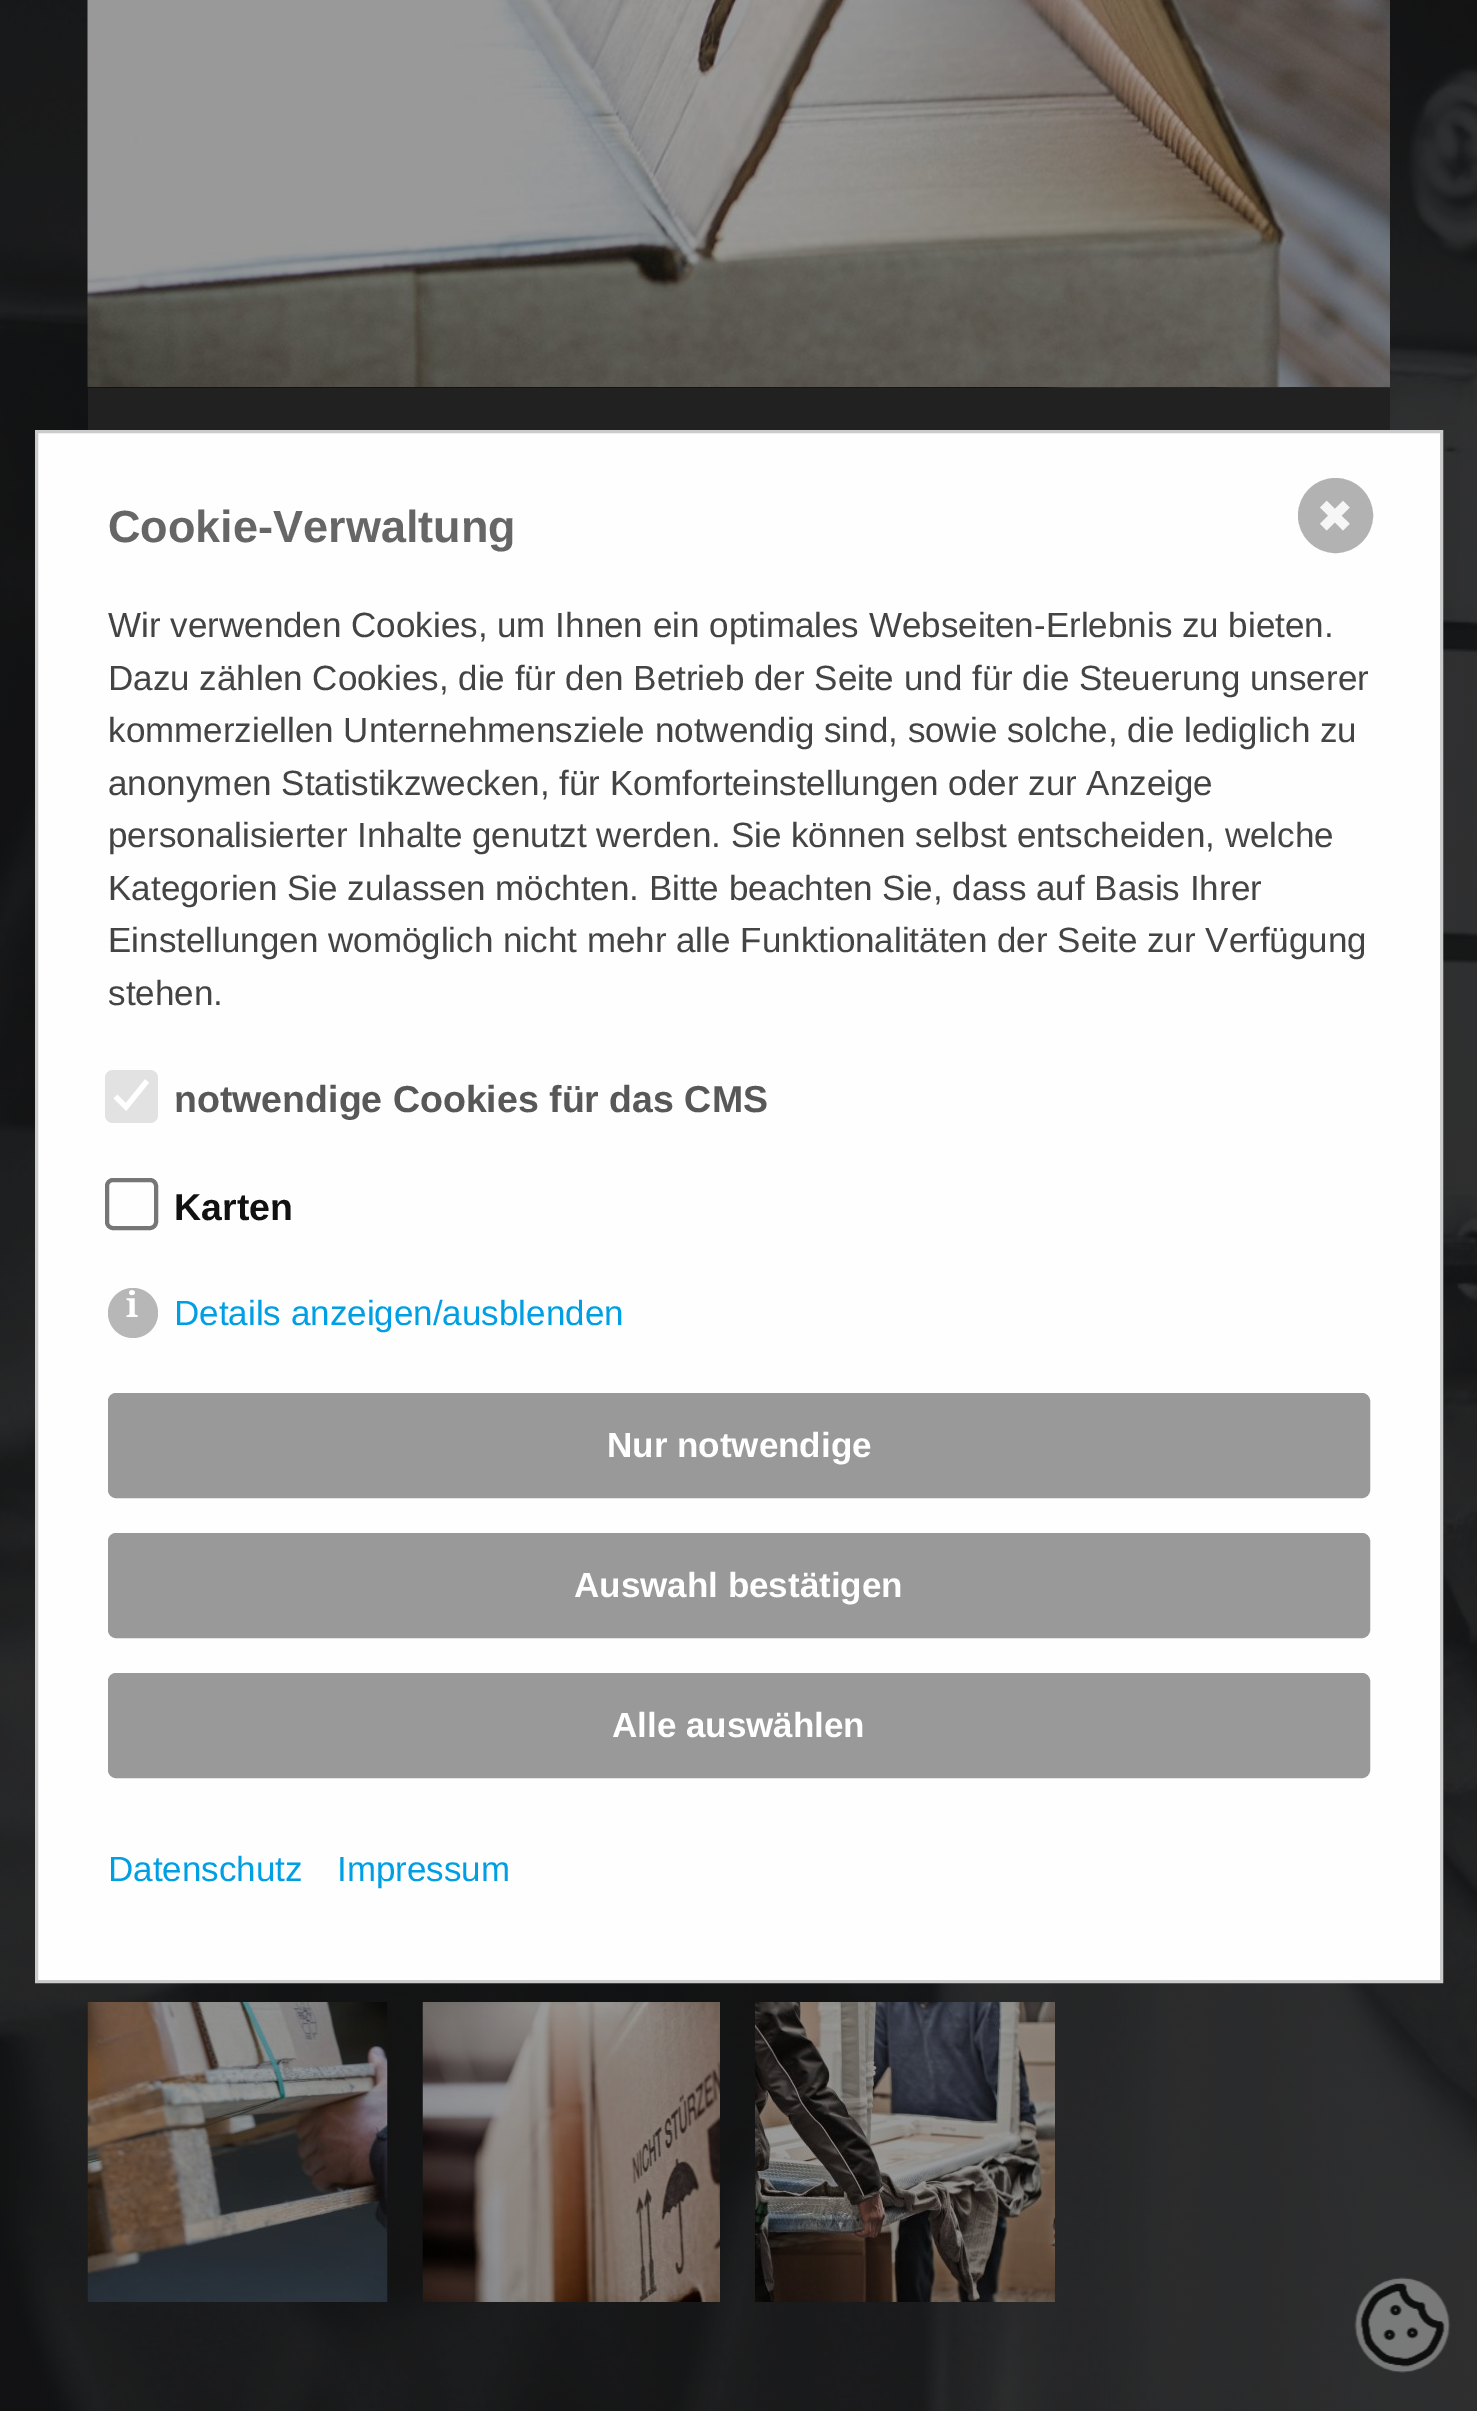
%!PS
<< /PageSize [1477 2411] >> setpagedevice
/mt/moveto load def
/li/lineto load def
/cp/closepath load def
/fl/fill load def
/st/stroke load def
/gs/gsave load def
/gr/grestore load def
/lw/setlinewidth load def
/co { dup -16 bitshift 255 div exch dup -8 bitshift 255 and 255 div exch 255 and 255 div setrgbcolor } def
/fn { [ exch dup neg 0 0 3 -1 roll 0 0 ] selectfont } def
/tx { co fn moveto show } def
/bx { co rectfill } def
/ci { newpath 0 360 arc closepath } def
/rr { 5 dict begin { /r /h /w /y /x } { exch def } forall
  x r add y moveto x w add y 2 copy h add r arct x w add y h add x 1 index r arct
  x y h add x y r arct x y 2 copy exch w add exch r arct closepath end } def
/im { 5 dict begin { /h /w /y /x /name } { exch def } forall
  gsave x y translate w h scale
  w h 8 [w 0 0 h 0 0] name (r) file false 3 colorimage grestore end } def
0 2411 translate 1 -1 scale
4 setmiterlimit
0 0 1477 2411 16#FFFFFF bx
(media/1.raw) 0 0 1477 2411 im
(media/2.raw) 87 0 1303 387 im
88 388 1302 42 16#212121 bx
(media/3.raw) 87 2002 301 300 im
(media/4.raw) 422 2002 298 300 im
(media/5.raw) 755 2002 300 300 im
16#FEFEFE co
36.5 431.5 mt 1441.5 431.5 li 1441.5 1981.5 li 36.5 1981.5 li cp gs fl gr
16#CBCBCB co
3 lw
st
16#B2B2B2 co
1335.5 515.5 35 ci gs fl gr
5 lw
st
16#E2E2E2 co
105 1070 53 53 8 rr fl
16#FFFFFF co
5.2 lw
115.5 1096.5 mt 126 1107 li 147 1081 li st
16#767676 co
4 lw
107 1180 49 48 6 rr st
16#B7B7B7 co
133 1313 25 ci fl
16#999999 co
109.5 1394.5 1259 102 6.5 rr gs fl gr
3 lw
st
109.5 1534.5 1259 102 6.5 rr gs fl gr
st
109.5 1674.5 1259 102 6.5 rr gs fl gr
st
(media/6.raw) 1354 2277 97 96 im
(✖) 1316 532 /DejaVuSans-Regular 45 16#F6F6F6 tx
(Cookie-Verwaltung) 108 542 /LiberationSans-Bold 45 16#666666 tx
(Wir verwenden Cookies, um Ihnen ein optimales Webseiten-Erlebnis zu bieten.) 108 637 /LiberationSans-Regular 35 16#444444 tx
(Dazu zählen Cookies, die für den Betrieb der Seite und für die Steuerung unserer) 108 690 /LiberationSans-Regular 35 16#444444 tx
(kommerziellen Unternehmensziele notwendig sind, sowie solche, die lediglich zu) 108 742 /LiberationSans-Regular 35 16#444444 tx
(anonymen Statistikzwecken, für Komforteinstellungen oder zur Anzeige) 108 795 /LiberationSans-Regular 35 16#444444 tx
(personalisierter Inhalte genutzt werden. Sie können selbst entscheiden, welche) 108 847 /LiberationSans-Regular 35 16#444444 tx
(Kategorien Sie zulassen möchten. Bitte beachten Sie, dass auf Basis Ihrer) 108 900 /LiberationSans-Regular 35 16#444444 tx
(Einstellungen womöglich nicht mehr alle Funktionalitäten der Seite zur Verfügung) 108 952 /LiberationSans-Regular 35 16#444444 tx
(stehen.) 108 1005 /LiberationSans-Regular 35 16#444444 tx
(notwendige Cookies für das CMS) 174 1112 /LiberationSans-Bold 37.5 16#585858 tx
(Karten) 174 1220 /LiberationSans-Bold 37.5 16#111111 tx
(i) 126 1317 /NotoSerif-Bold 35 16#FFFFFF tx
(Details anzeigen/ausblenden) 174 1325 /LiberationSans-Regular 35 16#009FE4 tx
(Nur notwendige) 607 1457 /LiberationSans-Bold 35 16#FFFFFF tx
(Auswahl bestätigen) 574 1597 /LiberationSans-Bold 35 16#FFFFFF tx
(Alle auswählen) 612 1737 /LiberationSans-Bold 35 16#FFFFFF tx
(Datenschutz) 108 1881 /LiberationSans-Regular 35 16#009FE4 tx
(Impressum) 337 1881 /LiberationSans-Regular 35 16#009FE4 tx
showpage
